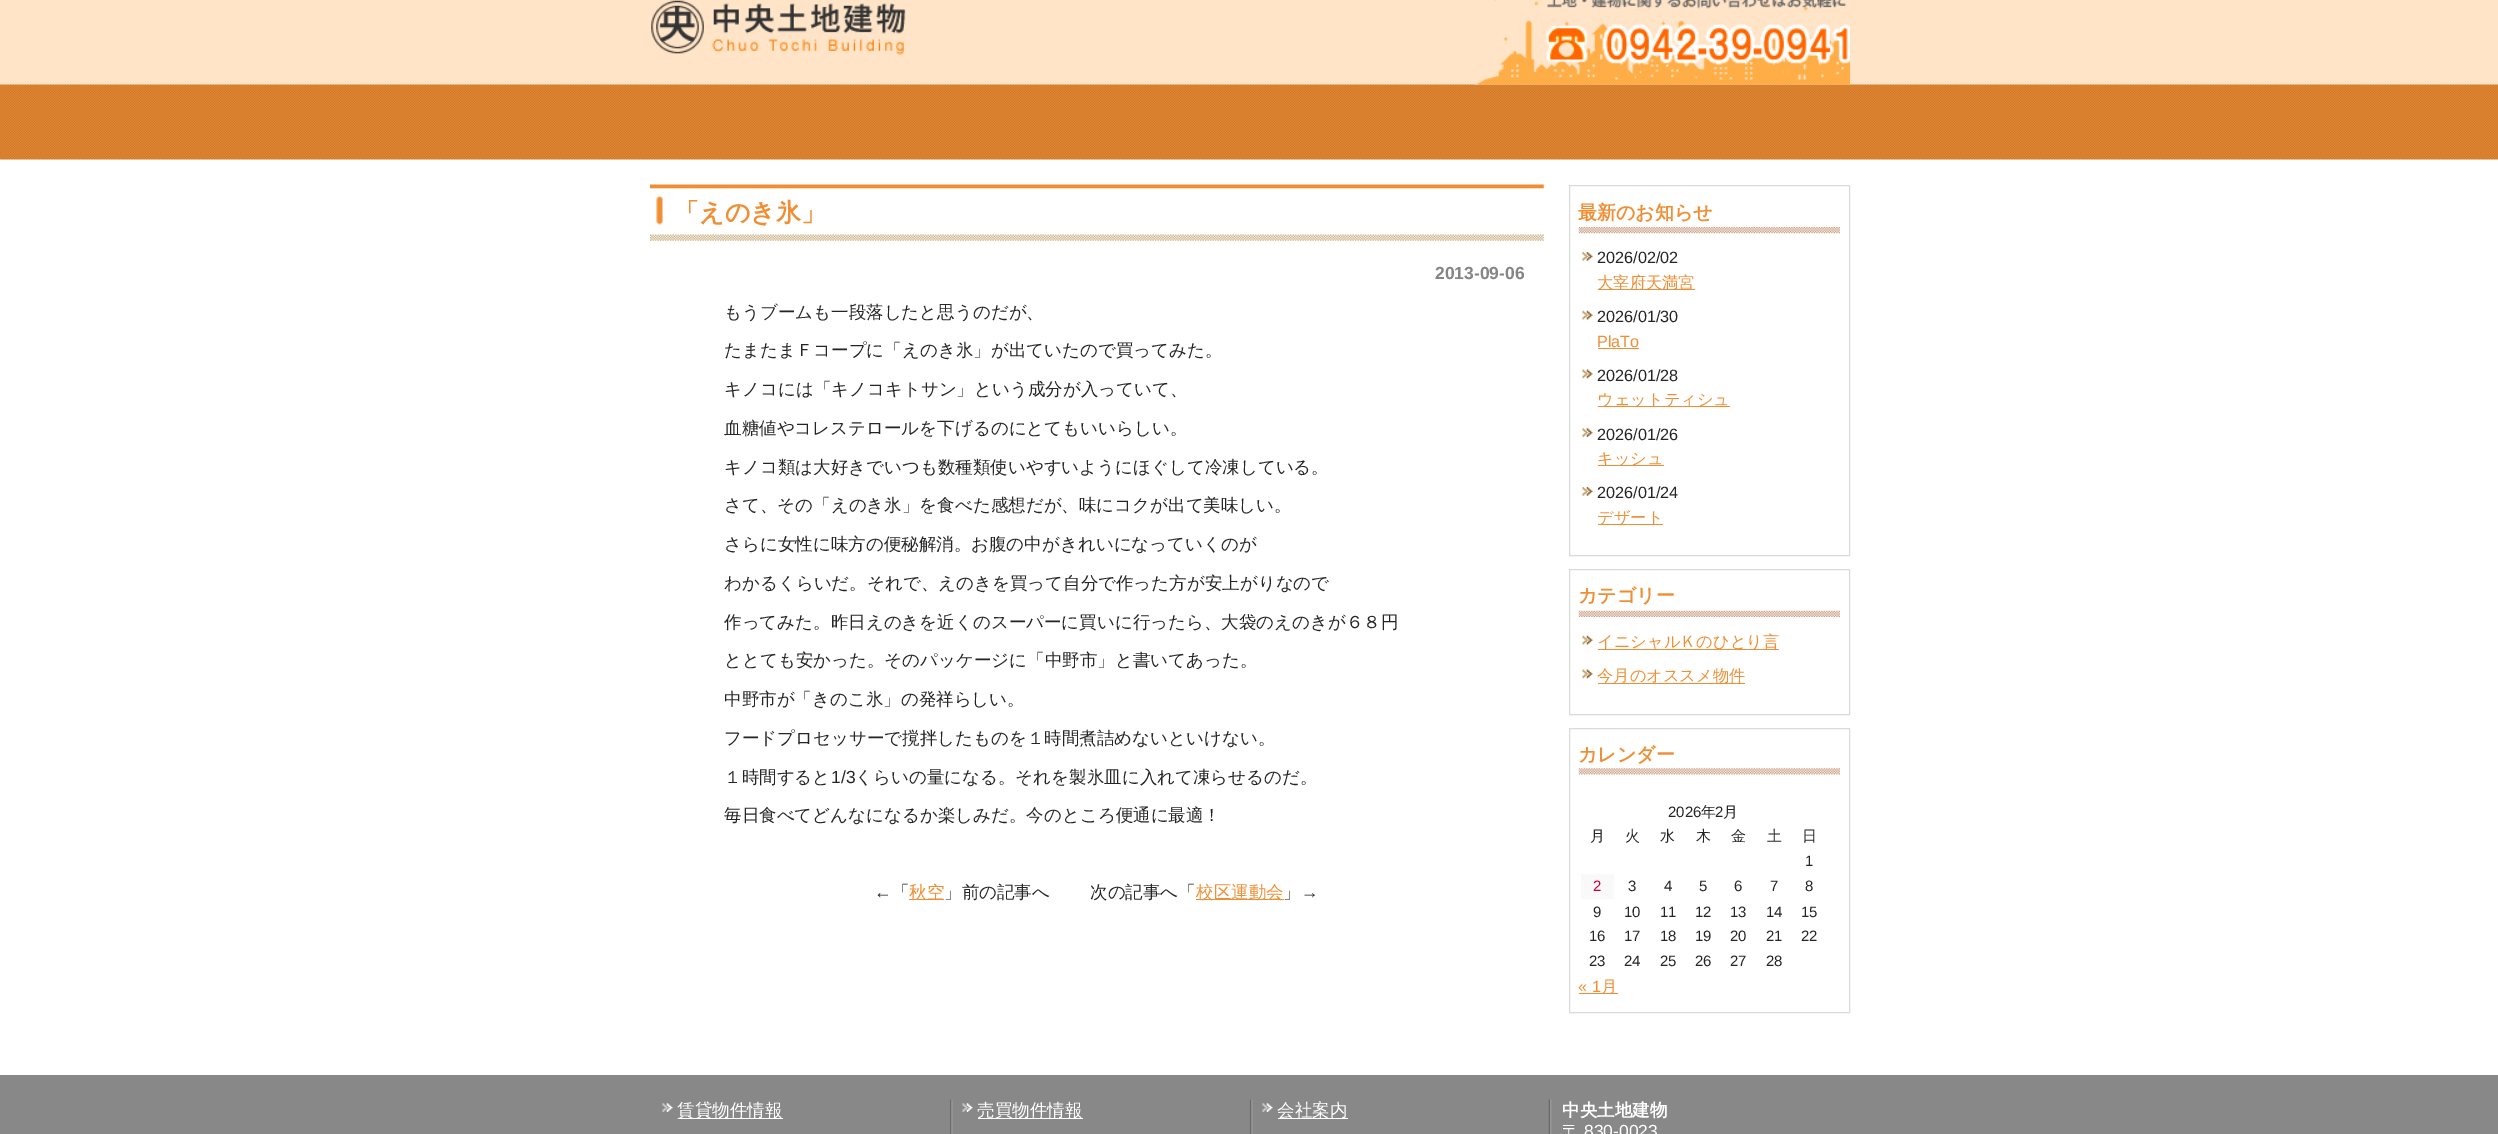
%!PS
<< /PageSize [2498 1134] >> setpagedevice
/co { dup -16 bitshift 255 div exch dup -8 bitshift 255 and 255 div exch 255 and 255 div setrgbcolor } def
/fn { [ exch dup neg 0 0 3 -1 roll 0 0 ] selectfont } def
/tx { co fn moveto show } def
/bx { co rectfill } def
/im { 5 dict begin { /h /w /y /x /name } { exch def } forall
  gsave x y translate w h scale
  w h 8 [w 0 0 h 0 0] name (r) file false 3 colorimage grestore end } def
0 1134 translate 1 -1 scale
4 setmiterlimit
0 0 2498 1134 16#FFFFFF bx
(media/1.raw) 0 0 2498 160 im
(media/2.raw) 651 0 255 55 im
(media/3.raw) 1475 0 375 85 im
(media/4.raw) 650 184 894 57 im
909 899 35 1 16#F08E34 bx
1196 899 88 1 16#F08E34 bx
16#DADADA co
1569.5 185.5 280 370 rectstroke
(media/5.raw) 1578 227 262 7 im
(media/6.raw) 1582 252 11 9 im
1598 289 97 1 16#F08E34 bx
(media/7.raw) 1582 310 11 10 im
1598 348 41 1 16#F08E34 bx
(media/8.raw) 1582 369 11 10 im
1598 406 132 1 16#F08E34 bx
(media/9.raw) 1582 428 11 9 im
1598 465 66 1 16#F08E34 bx
(media/6.raw) 1582 487 11 9 im
1598 524 65 1 16#F08E34 bx
16#DADADA co
1569.5 569.5 280 145 rectstroke
(media/10.raw) 1578 610 262 7 im
(media/7.raw) 1582 635 11 10 im
1598 649 181 1 16#F08E34 bx
(media/8.raw) 1582 669 11 10 im
1598 683 147 1 16#F08E34 bx
16#DADADA co
1569.5 728.5 280 284 rectstroke
(media/11.raw) 1578 768 262 7 im
1581 874 33 25 16#F9F9F9 bx
1579 993 39 1 16#F08E34 bx
0 1075 2498 59 16#888888 bx
(media/12.raw) 950 1099 602 35 im
(media/13.raw) 662 1103 11 9 im
678 1118 105 1 16#FFFFFF bx
(media/14.raw) 962 1103 11 9 im
978 1118 105 1 16#FFFFFF bx
(media/13.raw) 1262 1103 11 9 im
1278 1118 70 1 16#FFFFFF bx
(「えのき氷」) 674 221 /WenQuanYiZenHei-Bold 25 16#F08E34 tx
(2013-09-06) 1435 279 /LiberationSans-Bold 17.5 16#858585 tx
(もうブームも一段落したと思うのだが、) 724 318 /WenQuanYiZenHei-Medium 17.5 16#252525 tx
(たまたまＦコープに「えのき氷」が出ていたので買ってみた。) 724 356 /WenQuanYiZenHei-Medium 17.5 16#252525 tx
(キノコには「キノコキトサン」という成分が入っていて、) 724 395 /WenQuanYiZenHei-Medium 17.5 16#252525 tx
(血糖値やコレステロールを下げるのにとてもいいらしい。) 724 434 /WenQuanYiZenHei-Medium 17.5 16#252525 tx
(キノコ類は大好きでいつも数種類使いやすいようにほぐして冷凍している。) 724 473 /WenQuanYiZenHei-Medium 17.5 16#252525 tx
(さて、その「えのき氷」を食べた感想だが、味にコクが出て美味しい。) 724 511 /WenQuanYiZenHei-Medium 17.5 16#252525 tx
(さらに女性に味方の便秘解消。お腹の中がきれいになっていくのが) 724 550 /WenQuanYiZenHei-Medium 17.5 16#252525 tx
(わかるくらいだ。それで、えのきを買って自分で作った方が安上がりなので) 724 589 /WenQuanYiZenHei-Medium 17.5 16#252525 tx
(作ってみた。昨日えのきを近くのスーパーに買いに行ったら、大袋のえのきが６８円) 724 628 /WenQuanYiZenHei-Medium 17.5 16#252525 tx
(ととても安かった。そのパッケージに「中野市」と書いてあった。) 724 666 /WenQuanYiZenHei-Medium 17.5 16#252525 tx
(中野市が「きのこ氷」の発祥らしい。) 724 705 /WenQuanYiZenHei-Medium 17.5 16#252525 tx
(フードプロセッサーで撹拌したものを１時間煮詰めないといけない。) 724 744 /WenQuanYiZenHei-Medium 17.5 16#252525 tx
(１時間すると) 724 783 /WenQuanYiZenHei-Medium 17.5 16#252525 tx
(1/3) 831 783 /LiberationSans-Regular 17.5 16#252525 tx
(くらいの量になる。それを製氷皿に入れて凍らせるのだ。) 855 783 /WenQuanYiZenHei-Medium 17.5 16#252525 tx
(毎日食べてどんなになるか楽しみだ。今のところ便通に最適！) 724 821 /WenQuanYiZenHei-Medium 17.5 16#252525 tx
(←) 874 898 /LiberationSans-Regular 17.5 16#252525 tx
(「) 892 898 /WenQuanYiZenHei-Medium 17.5 16#252525 tx
(秋空) 909 898 /WenQuanYiZenHei-Medium 17.5 16#F08E34 tx
(」前の記事へ) 944 898 /WenQuanYiZenHei-Medium 17.5 16#252525 tx
(次の記事へ「) 1090 898 /WenQuanYiZenHei-Medium 17.5 16#252525 tx
(校区運動会) 1196 898 /WenQuanYiZenHei-Medium 17.5 16#F08E34 tx
(」) 1283 898 /WenQuanYiZenHei-Medium 17.5 16#252525 tx
(→) 1301 898 /LiberationSans-Regular 17.5 16#252525 tx
(最新のお知らせ) 1578 219 /WenQuanYiZenHei-Bold 19 16#F08E34 tx
(2026/02/02) 1597 263 /LiberationSans-Regular 16.25 16#252525 tx
(大宰府天満宮) 1597 288 /WenQuanYiZenHei-Medium 16.25 16#F08E34 tx
(2026/01/30) 1597 322 /LiberationSans-Regular 16.25 16#252525 tx
(PlaTo) 1597 347 /LiberationSans-Regular 16.25 16#F08E34 tx
(2026/01/28) 1597 381 /LiberationSans-Regular 16.25 16#252525 tx
(ウェットティシュ) 1597 405 /WenQuanYiZenHei-Medium 16.25 16#F08E34 tx
(2026/01/26) 1597 440 /LiberationSans-Regular 16.25 16#252525 tx
(キッシュ) 1597 464 /WenQuanYiZenHei-Medium 16.25 16#F08E34 tx
(2026/01/24) 1597 498 /LiberationSans-Regular 16.25 16#252525 tx
(デザート) 1597 523 /WenQuanYiZenHei-Medium 16.25 16#F08E34 tx
(カテゴリー) 1578 602 /WenQuanYiZenHei-Bold 19 16#F08E34 tx
(イニシャルＫのひとり言) 1597 647 /WenQuanYiZenHei-Medium 16.25 16#F08E34 tx
(今月のオススメ物件) 1597 681 /WenQuanYiZenHei-Medium 16.25 16#F08E34 tx
(カレンダー) 1578 761 /WenQuanYiZenHei-Bold 19 16#F08E34 tx
(2026) 1668 817 /LiberationSans-Regular 15 16#252525 tx
(年) 1701 817 /WenQuanYiZenHei-Medium 15 16#252525 tx
(2) 1715 817 /LiberationSans-Regular 15 16#252525 tx
(月) 1723 817 /WenQuanYiZenHei-Medium 15 16#252525 tx
(月) 1590 841 /WenQuanYiZenHei-Medium 15 16#252525 tx
(火) 1625 841 /WenQuanYiZenHei-Medium 15 16#252525 tx
(水) 1660 841 /WenQuanYiZenHei-Medium 15 16#252525 tx
(木) 1696 841 /WenQuanYiZenHei-Medium 15 16#252525 tx
(金) 1731 841 /WenQuanYiZenHei-Medium 15 16#252525 tx
(土) 1767 841 /WenQuanYiZenHei-Medium 15 16#252525 tx
(日) 1802 841 /WenQuanYiZenHei-Medium 15 16#252525 tx
(1) 1805 866 /LiberationSans-Regular 15 16#252525 tx
(2) 1593 891 /LiberationSans-Regular 15 16#CC0033 tx
(3) 1628 891 /LiberationSans-Regular 15 16#252525 tx
(4) 1664 891 /LiberationSans-Regular 15 16#252525 tx
(5) 1699 891 /LiberationSans-Regular 15 16#252525 tx
(6) 1734 891 /LiberationSans-Regular 15 16#252525 tx
(7) 1770 891 /LiberationSans-Regular 15 16#252525 tx
(8) 1805 891 /LiberationSans-Regular 15 16#252525 tx
(9) 1593 917 /LiberationSans-Regular 15 16#252525 tx
(10) 1624 917 /LiberationSans-Regular 15 16#252525 tx
(11) 1660 917 /LiberationSans-Regular 15 16#252525 tx
(12) 1695 917 /LiberationSans-Regular 15 16#252525 tx
(13) 1730 917 /LiberationSans-Regular 15 16#252525 tx
(14) 1766 917 /LiberationSans-Regular 15 16#252525 tx
(15) 1801 917 /LiberationSans-Regular 15 16#252525 tx
(16) 1589 941 /LiberationSans-Regular 15 16#252525 tx
(17) 1624 941 /LiberationSans-Regular 15 16#252525 tx
(18) 1660 941 /LiberationSans-Regular 15 16#252525 tx
(19) 1695 941 /LiberationSans-Regular 15 16#252525 tx
(20) 1730 941 /LiberationSans-Regular 15 16#252525 tx
(21) 1766 941 /LiberationSans-Regular 15 16#252525 tx
(22) 1801 941 /LiberationSans-Regular 15 16#252525 tx
(23) 1589 966 /LiberationSans-Regular 15 16#252525 tx
(24) 1624 966 /LiberationSans-Regular 15 16#252525 tx
(25) 1660 966 /LiberationSans-Regular 15 16#252525 tx
(26) 1695 966 /LiberationSans-Regular 15 16#252525 tx
(27) 1730 966 /LiberationSans-Regular 15 16#252525 tx
(28) 1766 966 /LiberationSans-Regular 15 16#252525 tx
(« 1) 1578 992 /LiberationSans-Regular 16.25 16#F08E34 tx
(月) 1601 992 /WenQuanYiZenHei-Medium 16.25 16#F08E34 tx
(賃貸物件情報) 677 1116 /WenQuanYiZenHei-Medium 17.5 16#FFFFFF tx
(売買物件情報) 977 1116 /WenQuanYiZenHei-Medium 17.5 16#FFFFFF tx
(会社案内) 1277 1116 /WenQuanYiZenHei-Medium 17.5 16#FFFFFF tx
(中央土地建物) 1562 1116 /WenQuanYiZenHei-Bold 17.5 16#FFFFFF tx
(〒) 1562 1137 /WenQuanYiZenHei-Medium 17.5 16#FFFFFF tx
(830-0023) 1584 1137 /LiberationSans-Regular 17.5 16#FFFFFF tx
showpage
